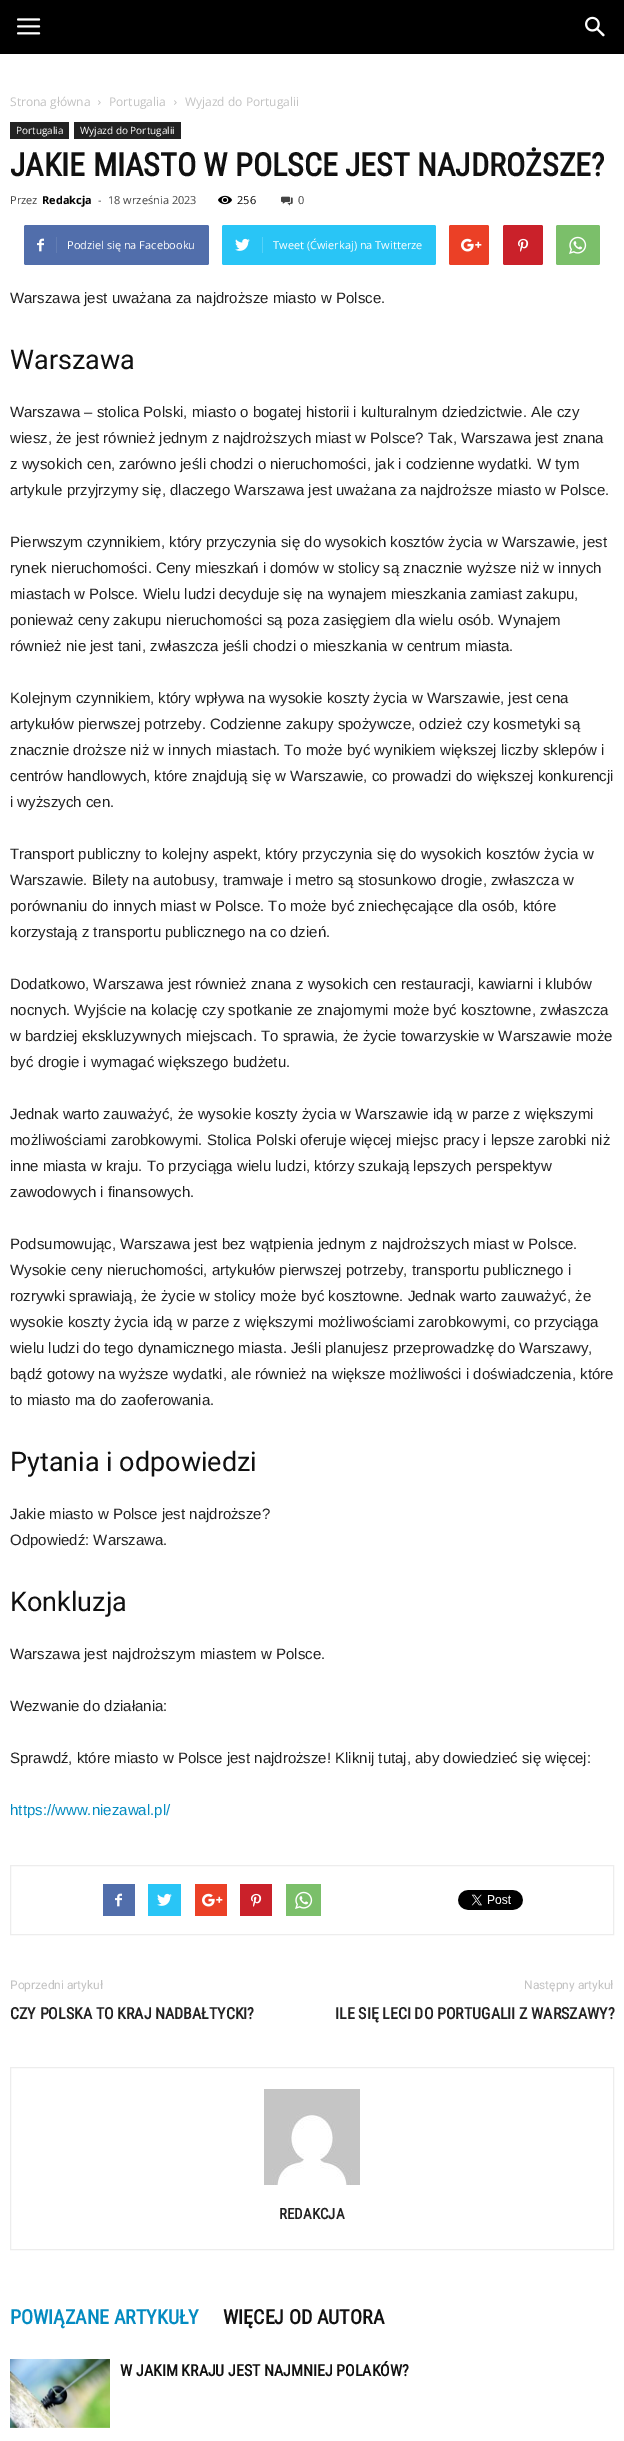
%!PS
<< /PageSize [624 2441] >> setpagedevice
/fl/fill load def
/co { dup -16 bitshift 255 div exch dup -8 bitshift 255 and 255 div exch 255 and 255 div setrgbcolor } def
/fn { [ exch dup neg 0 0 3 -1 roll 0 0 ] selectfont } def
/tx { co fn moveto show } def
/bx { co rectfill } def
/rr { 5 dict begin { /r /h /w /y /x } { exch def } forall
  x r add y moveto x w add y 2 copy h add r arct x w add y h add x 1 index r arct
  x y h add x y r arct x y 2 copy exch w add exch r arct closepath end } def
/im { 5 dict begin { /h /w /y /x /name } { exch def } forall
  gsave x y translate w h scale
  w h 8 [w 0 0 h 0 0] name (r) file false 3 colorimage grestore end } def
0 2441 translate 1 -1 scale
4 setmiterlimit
0 0 624 2441 16#FFFFFF bx
0 0 624 54 16#000000 bx
(media/1.raw) 17 18 24 17 im
(media/2.raw) 585 16 20 21 im
(media/3.raw) 98 100 3 5 im
(media/3.raw) 174 100 3 5 im
10 122 59 17 16#222222 bx
74 122 107 17 16#222222 bx
(media/4.raw) 218 195 14 10 im
(media/5.raw) 281 196 12 10 im
16#516EAB co
24 225 185 40 2 rr fl
(media/6.raw) 37 238 7 14 im
56 237 1 16 16#627DB3 bx
16#29C5F6 co
222 225 214 40 2 rr fl
(media/7.raw) 235 238 15 13 im
262 237 1 16 16#54D1F8 bx
16#EB4026 co
449 225 40 40 2 rr fl
(media/8.raw) 461 238 21 14 im
16#CA212A co
503 225 40 40 2 rr fl
(media/9.raw) 518 238 11 14 im
16#7BBF6A co
556 225 44 40 2 rr fl
(media/10.raw) 569 236 18 18 im
16#EDEDED co
10.5 1865.5 603 69 rectstroke
103 1884 32 32 16#516EAB bx
(media/6.raw) 115 1893 7 14 im
148 1884 33 32 16#29C5F6 bx
(media/7.raw) 157 1893 15 13 im
195 1884 32 32 16#EB4026 bx
(media/8.raw) 202 1893 21 14 im
240 1884 32 32 16#CA212A bx
(media/9.raw) 251 1893 11 14 im
286 1884 35 32 16#7BBF6A bx
(media/10.raw) 295 1891 18 18 im
(media/11.raw) 458 1890 65 20 im
16#EDEDED co
10.5 2067.5 603 182 rectstroke
(media/12.raw) 264 2089 96 96 im
(media/13.raw) 10 2359 100 69 im
(Strona główna) 10 106 /OpenSans-Regular 12 16#C3C3C3 tx
(Portugalia) 109 106 /OpenSans-Regular 12 16#C3C3C3 tx
(Wyjazd do Portugalii) 185 106 /OpenSans-Regular 12 16#C3C3C3 tx
(Portugalia) 16 134 /OpenSans-Regular 10 16#FFFFFF tx
(Wyjazd do Portugalii) 80 134 /OpenSans-Regular 10 16#FFFFFF tx
(JAKIE MIASTO W POLSCE JEST NAJDROŻSZE?) 10 176 /RobotoCondensed-Bold 32 16#111111 tx
(Przez) 10 204 /OpenSans-Regular 11 16#444444 tx
(Redakcja) 42 204 /OpenSans-Bold 11 16#000000 tx
(-) 98 204 /OpenSans-Regular 11 16#444444 tx
(18 września 2023) 108 204 /OpenSans-Regular 11 16#444444 tx
(256) 237 204 /OpenSans-Regular 11 16#000000 tx
(0) 298 204 /OpenSans-Regular 11 16#444444 tx
(Podziel się na Facebooku) 67 249 /OpenSans-Regular 11 16#FFFFFF tx
(Tweet \(Ćwierkaj\) na Twitterze) 273 249 /OpenSans-Regular 11 16#FFFFFF tx
(Warszawa jest uważana za najdroższe miasto w Polsce.) 10 303 /LiberationSans-Regular 15 16#222222 tx
(Warszawa) 10 369 /Roboto-Regular 27 16#111111 tx
(Warszawa – stolica Polski, miasto o bogatej historii i kulturalnym dziedzictwie. Ale czy) 10 417 /LiberationSans-Regular 15 16#222222 tx
(wiesz, że jest również jednym z najdroższych miast w Polsce? Tak, Warszawa jest znana) 10 443 /LiberationSans-Regular 15 16#222222 tx
(z wysokich cen, zarówno jeśli chodzi o nieruchomości, jak i codzienne wydatki. W tym) 10 469 /LiberationSans-Regular 15 16#222222 tx
(artykule przyjrzymy się, dlaczego Warszawa jest uważana za najdroższe miasto w Polsce.) 10 495 /LiberationSans-Regular 15 16#222222 tx
(Pierwszym czynnikiem, który przyczynia się do wysokich kosztów życia w Warszawie, jest) 10 547 /LiberationSans-Regular 15 16#222222 tx
(rynek nieruchomości. Ceny mieszkań i domów w stolicy są znacznie wyższe niż w innych) 10 573 /LiberationSans-Regular 15 16#222222 tx
(miastach w Polsce. Wielu ludzi decyduje się na wynajem mieszkania zamiast zakupu,) 10 599 /LiberationSans-Regular 15 16#222222 tx
(ponieważ ceny zakupu nieruchomości są poza zasięgiem dla wielu osób. Wynajem) 10 625 /LiberationSans-Regular 15 16#222222 tx
(również nie jest tani, zwłaszcza jeśli chodzi o mieszkania w centrum miasta.) 10 651 /LiberationSans-Regular 15 16#222222 tx
(Kolejnym czynnikiem, który wpływa na wysokie koszty życia w Warszawie, jest cena) 10 703 /LiberationSans-Regular 15 16#222222 tx
(artykułów pierwszej potrzeby. Codzienne zakupy spożywcze, odzież czy kosmetyki są) 10 729 /LiberationSans-Regular 15 16#222222 tx
(znacznie droższe niż w innych miastach. To może być wynikiem większej liczby sklepów i) 10 755 /LiberationSans-Regular 15 16#222222 tx
(centrów handlowych, które znajdują się w Warszawie, co prowadzi do większej konkurencji) 10 781 /LiberationSans-Regular 15 16#222222 tx
(i wyższych cen.) 10 807 /LiberationSans-Regular 15 16#222222 tx
(Transport publiczny to kolejny aspekt, który przyczynia się do wysokich kosztów życia w) 10 859 /LiberationSans-Regular 15 16#222222 tx
(Warszawie. Bilety na autobusy, tramwaje i metro są stosunkowo drogie, zwłaszcza w) 10 885 /LiberationSans-Regular 15 16#222222 tx
(porównaniu do innych miast w Polsce. To może być zniechęcające dla osób, które) 10 911 /LiberationSans-Regular 15 16#222222 tx
(korzystają z transportu publicznego na co dzień.) 10 937 /LiberationSans-Regular 15 16#222222 tx
(Dodatkowo, Warszawa jest również znana z wysokich cen restauracji, kawiarni i klubów) 10 989 /LiberationSans-Regular 15 16#222222 tx
(nocnych. Wyjście na kolację czy spotkanie ze znajomymi może być kosztowne, zwłaszcza) 10 1015 /LiberationSans-Regular 15 16#222222 tx
(w bardziej ekskluzywnych miejscach. To sprawia, że życie towarzyskie w Warszawie może) 10 1041 /LiberationSans-Regular 15 16#222222 tx
(być drogie i wymagać większego budżetu.) 10 1067 /LiberationSans-Regular 15 16#222222 tx
(Jednak warto zauważyć, że wysokie koszty życia w Warszawie idą w parze z większymi) 10 1119 /LiberationSans-Regular 15 16#222222 tx
(możliwościami zarobkowymi. Stolica Polski oferuje więcej miejsc pracy i lepsze zarobki niż) 10 1145 /LiberationSans-Regular 15 16#222222 tx
(inne miasta w kraju. To przyciąga wielu ludzi, którzy szukają lepszych perspektyw) 10 1171 /LiberationSans-Regular 15 16#222222 tx
(zawodowych i finansowych.) 10 1197 /LiberationSans-Regular 15 16#222222 tx
(Podsumowując, Warszawa jest bez wątpienia jednym z najdroższych miast w Polsce.) 10 1249 /LiberationSans-Regular 15 16#222222 tx
(Wysokie ceny nieruchomości, artykułów pierwszej potrzeby, transportu publicznego i) 10 1275 /LiberationSans-Regular 15 16#222222 tx
(rozrywki sprawiają, że życie w stolicy może być kosztowne. Jednak warto zauważyć, że) 10 1301 /LiberationSans-Regular 15 16#222222 tx
(wysokie koszty życia idą w parze z większymi możliwościami zarobkowymi, co przyciąga) 10 1327 /LiberationSans-Regular 15 16#222222 tx
(wielu ludzi do tego dynamicznego miasta. Jeśli planujesz przeprowadzkę do Warszawy,) 10 1353 /LiberationSans-Regular 15 16#222222 tx
(bądź gotowy na wyższe wydatki, ale również na większe możliwości i doświadczenia, które) 10 1379 /LiberationSans-Regular 15 16#222222 tx
(to miasto ma do zaoferowania.) 10 1405 /LiberationSans-Regular 15 16#222222 tx
(Pytania i odpowiedzi) 10 1471 /Roboto-Regular 27 16#111111 tx
(Jakie miasto w Polsce jest najdroższe?) 10 1519 /LiberationSans-Regular 15 16#222222 tx
(Odpowiedź: Warszawa.) 10 1545 /LiberationSans-Regular 15 16#222222 tx
(Konkluzja) 10 1611 /Roboto-Regular 27 16#111111 tx
(Warszawa jest najdroższym miastem w Polsce.) 10 1659 /LiberationSans-Regular 15 16#222222 tx
(Wezwanie do działania:) 10 1711 /LiberationSans-Regular 15 16#222222 tx
(Sprawdź, które miasto w Polsce jest najdroższe! Kliknij tutaj, aby dowiedzieć się więcej:) 10 1763 /LiberationSans-Regular 15 16#222222 tx
(https://www.niezawal.pl/) 10 1815 /LiberationSans-Regular 15 16#038BC1 tx
(Poprzedni artykuł) 10 1989 /Roboto-Regular 12 16#C3C3C3 tx
(CZY POLSKA TO KRAJ NADBAŁTYCKI?) 10 2019 /RobotoCondensed-Bold 16 16#222222 tx
(Następny artykuł) 524 1989 /Roboto-Regular 12 16#C3C3C3 tx
(ILE SIĘ LECI DO PORTUGALII Z WARSZAWY?) 335 2019 /RobotoCondensed-Bold 16 16#222222 tx
(REDAKCJA) 279 2219 /RobotoCondensed-Bold 15 16#222222 tx
(POWIĄZANE ARTYKUŁY) 10 2324 /RobotoCondensed-Bold 20 16#038BC1 tx
(WIĘCEJ OD AUTORA) 223 2324 /RobotoCondensed-Bold 20 16#111111 tx
(W JAKIM KRAJU JEST NAJMNIEJ POLAKÓW?) 120 2376 /RobotoCondensed-Bold 16 16#111111 tx
showpage
